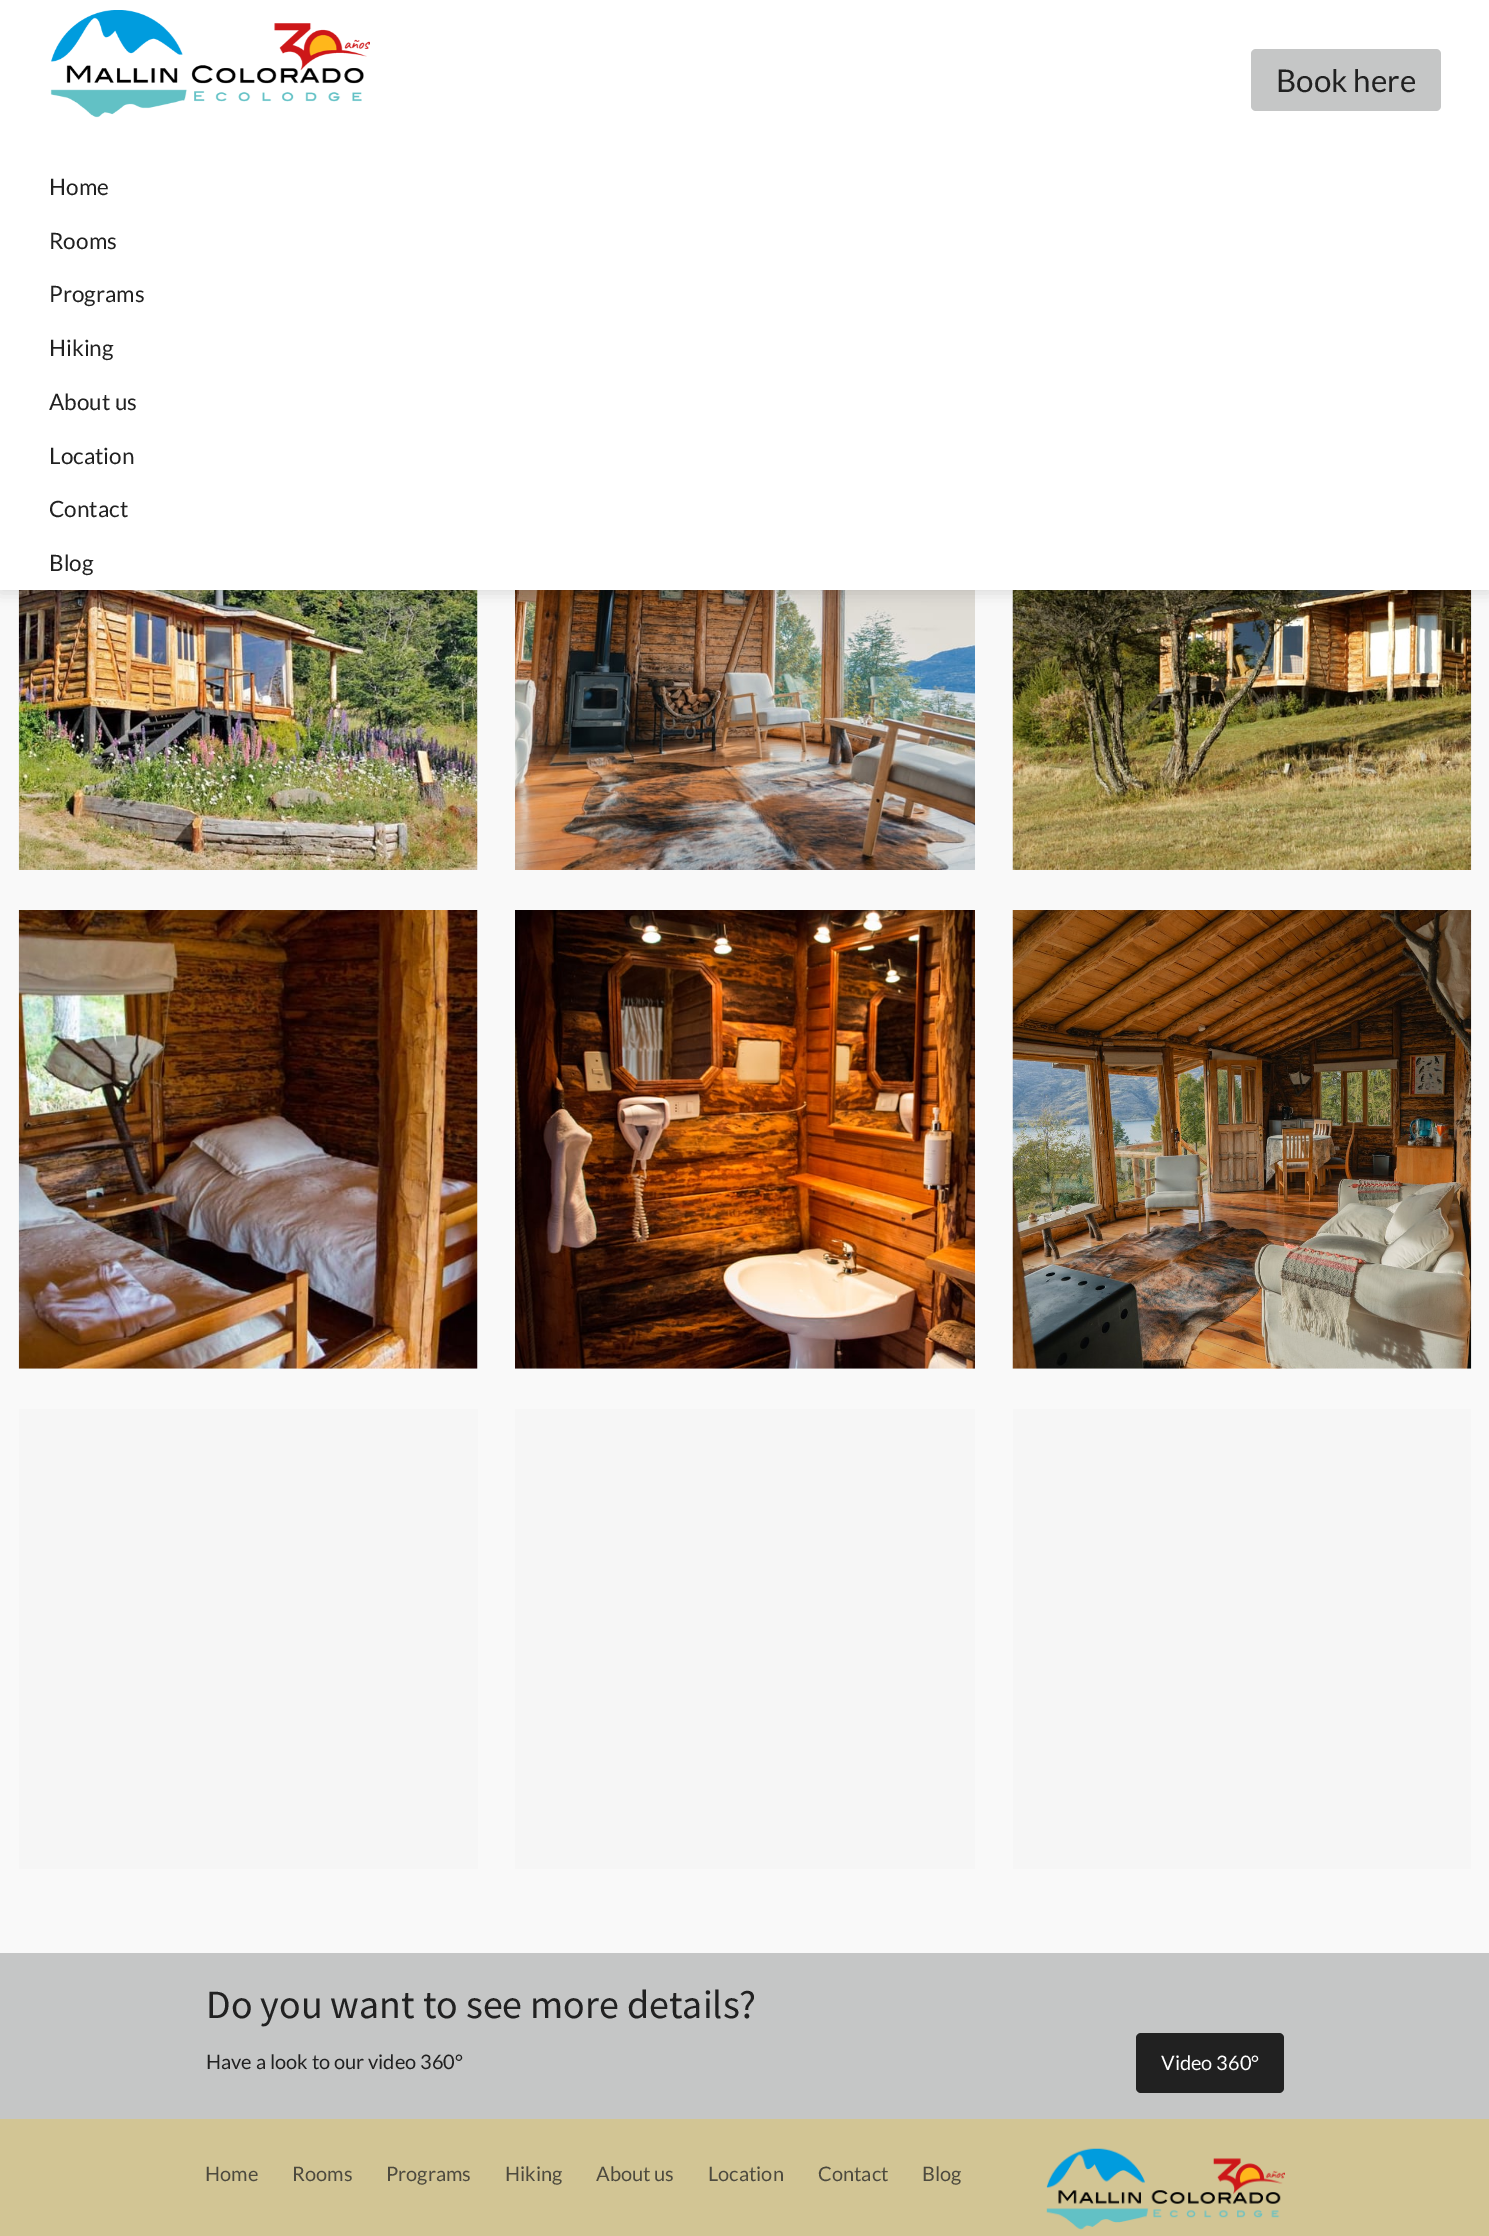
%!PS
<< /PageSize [1489 2236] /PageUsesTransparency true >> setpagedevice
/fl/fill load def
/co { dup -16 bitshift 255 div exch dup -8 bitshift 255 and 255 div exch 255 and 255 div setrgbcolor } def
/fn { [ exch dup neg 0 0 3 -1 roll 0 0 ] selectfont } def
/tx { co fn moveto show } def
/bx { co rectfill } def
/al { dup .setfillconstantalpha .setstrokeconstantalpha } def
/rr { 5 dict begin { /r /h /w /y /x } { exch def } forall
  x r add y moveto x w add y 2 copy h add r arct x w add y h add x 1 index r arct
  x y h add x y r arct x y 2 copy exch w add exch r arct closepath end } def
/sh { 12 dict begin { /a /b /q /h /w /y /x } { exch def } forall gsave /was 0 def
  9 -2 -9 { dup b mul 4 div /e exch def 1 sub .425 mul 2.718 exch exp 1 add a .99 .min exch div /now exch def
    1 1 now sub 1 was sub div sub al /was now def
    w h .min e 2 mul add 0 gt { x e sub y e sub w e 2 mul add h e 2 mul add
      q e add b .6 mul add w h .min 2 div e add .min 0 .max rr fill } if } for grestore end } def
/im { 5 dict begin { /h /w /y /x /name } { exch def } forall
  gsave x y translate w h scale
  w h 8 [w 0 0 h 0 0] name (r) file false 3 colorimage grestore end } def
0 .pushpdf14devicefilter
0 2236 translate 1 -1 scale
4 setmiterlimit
0 0 1489 2236 16#F9F9F9 bx
(media/2.raw) 18 590 460 280 im
(media/3.raw) 515 590 460 280 im
(media/4.raw) 1012 590 460 280 im
16#000000 co
0 3 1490 590 0 7.5 .12 sh
0 0 1489 590 16#FFFFFF bx
(media/1.raw) 50 10 320 108 im
16#C5C6C6 co
1251 49 190 62 5 rr fl
(media/5.raw) 18 910 460 459 im
(media/6.raw) 515 910 460 459 im
(media/7.raw) 1012 910 460 459 im
19 1409 459 460 16#F6F6F6 bx
515 1409 460 460 16#F6F6F6 bx
1013 1409 458 460 16#F6F6F6 bx
0 1953 1489 166 16#C5C6C6 bx
16#212121 co
1136 2033 148 60 5 rr fl
0 2119 1489 117 16#D2C594 bx
(media/8.raw) 1046 2148 239 82 im
(Book here) 1276 92 /Lato-Regular 31.25 16#212121 tx
(Home) 49 195 /Lato-Regular 22.5 16#212121 tx
(Rooms) 49 249 /Lato-Regular 22.5 16#212121 tx
(Programs) 49 302 /Lato-Regular 22.5 16#212121 tx
(Hiking) 49 356 /Lato-Regular 22.5 16#212121 tx
(About us) 49 410 /Lato-Regular 22.5 16#212121 tx
(Location) 49 464 /Lato-Regular 22.5 16#212121 tx
(Contact) 49 517 /Lato-Regular 22.5 16#212121 tx
(Blog) 49 571 /Lato-Regular 22.5 16#212121 tx
(Do you want to see more details?) 206 2018 /SourceSansPro-Regular 40 16#212121 tx
(Have a look to our video 360°) 206 2069 /Lato-Regular 20 16#212121 tx
(Video 360°) 1161 2070 /Lato-Regular 20 16#FFFFFF tx
(Home) 205 2181 /Lato-Regular 20 16#4D4A3E tx
(Rooms) 292 2181 /Lato-Regular 20 16#4D4A3E tx
(Programs) 386 2181 /Lato-Regular 20 16#4D4A3E tx
(Hiking) 505 2181 /Lato-Regular 20 16#4D4A3E tx
(About us) 596 2181 /Lato-Regular 20 16#4D4A3E tx
(Location) 708 2181 /Lato-Regular 20 16#4D4A3E tx
(Contact) 818 2181 /Lato-Regular 20 16#4D4A3E tx
(Blog) 922 2181 /Lato-Regular 20 16#4D4A3E tx
.poppdf14devicefilter showpage
